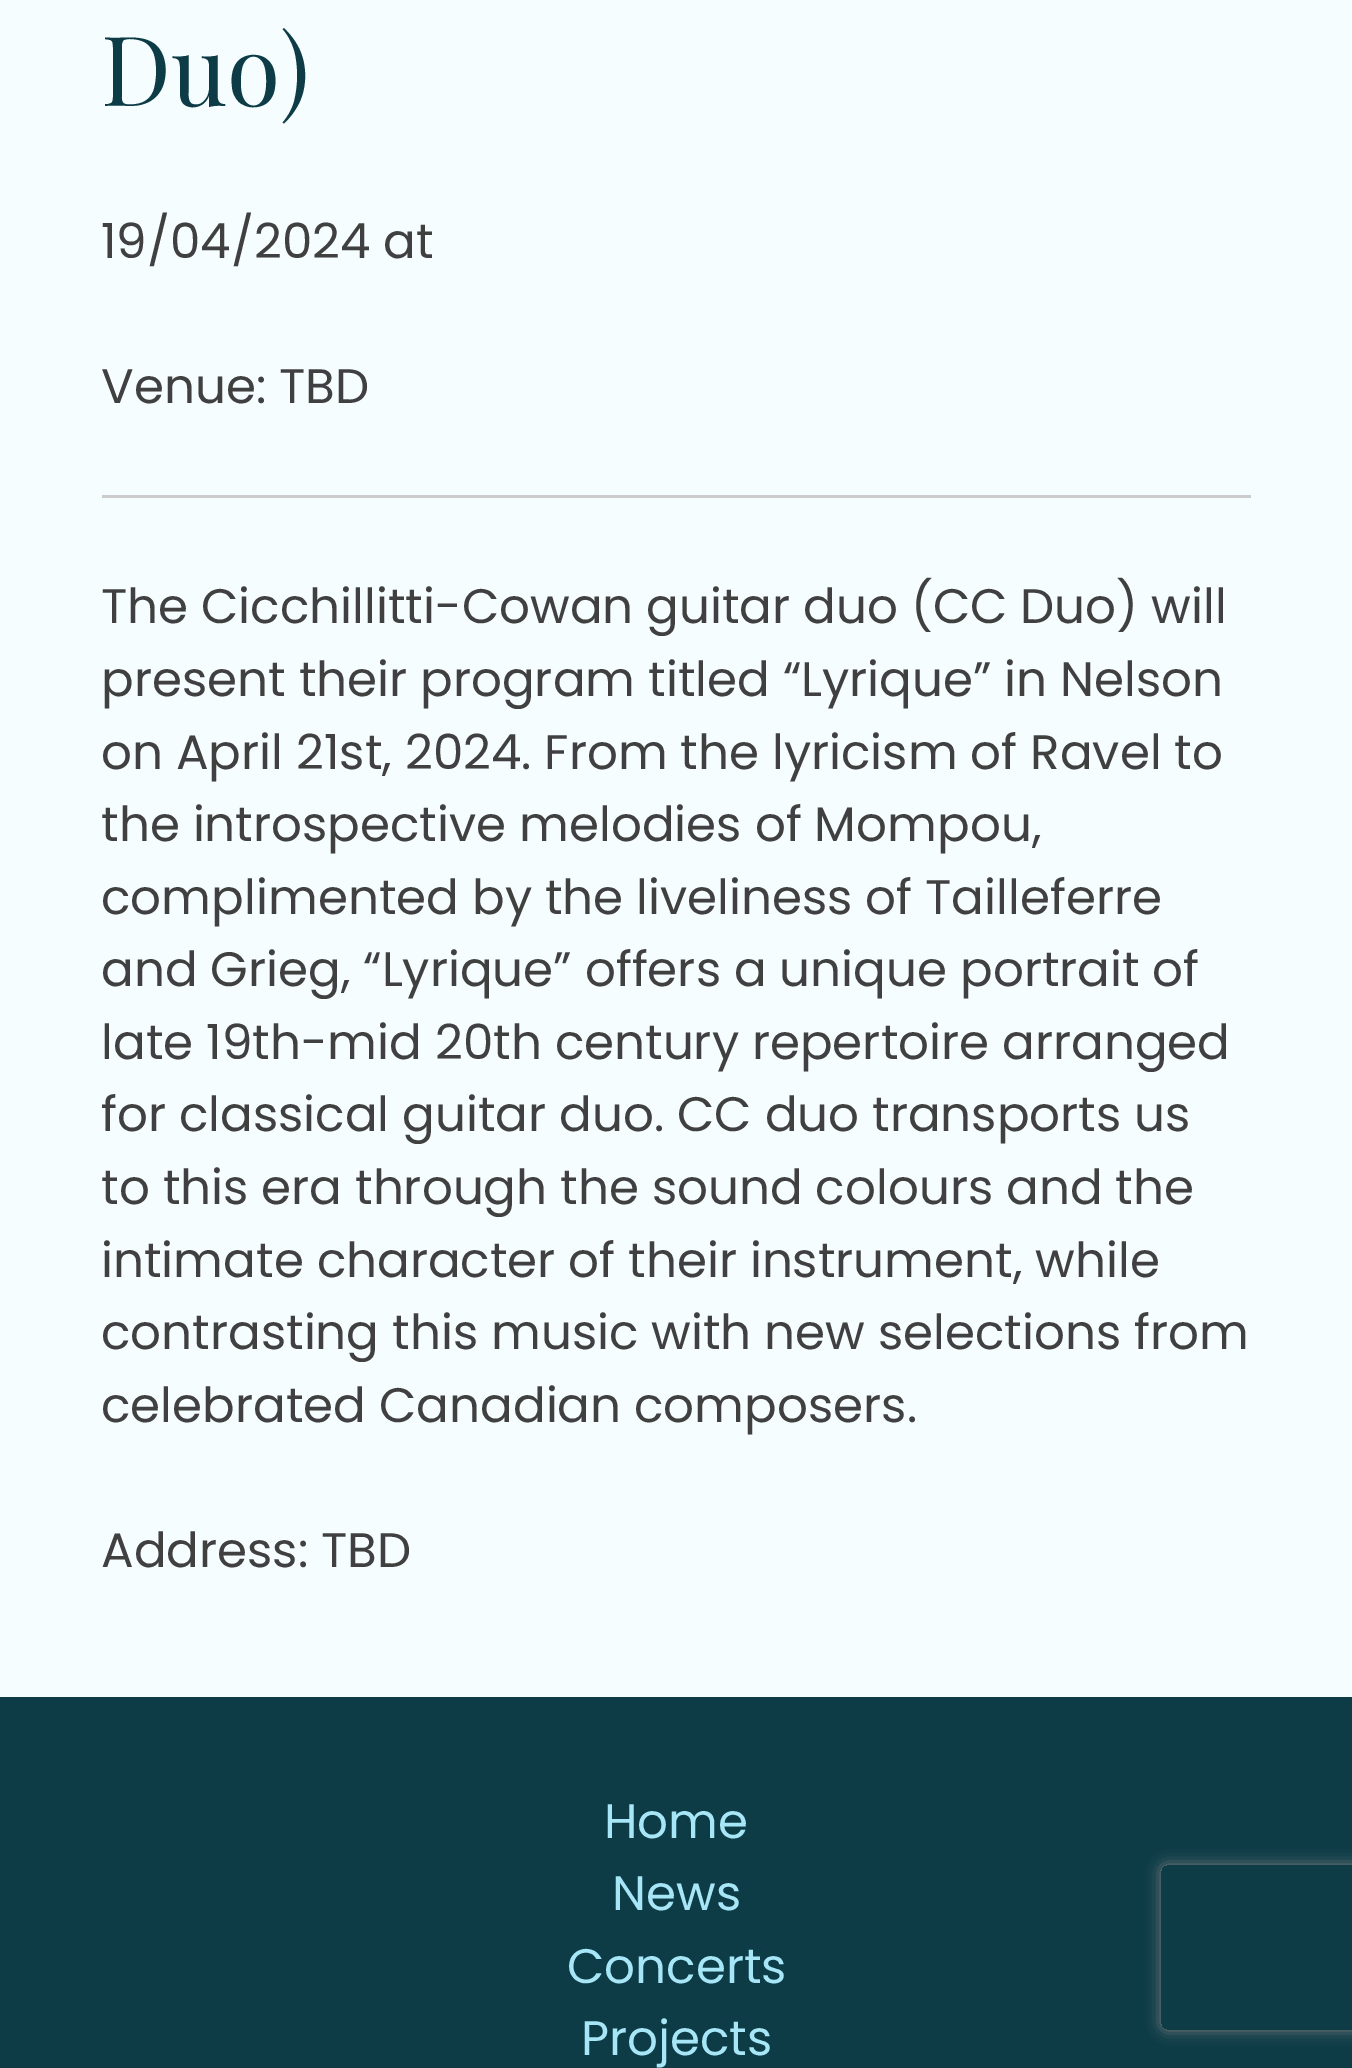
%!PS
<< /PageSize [1352 2068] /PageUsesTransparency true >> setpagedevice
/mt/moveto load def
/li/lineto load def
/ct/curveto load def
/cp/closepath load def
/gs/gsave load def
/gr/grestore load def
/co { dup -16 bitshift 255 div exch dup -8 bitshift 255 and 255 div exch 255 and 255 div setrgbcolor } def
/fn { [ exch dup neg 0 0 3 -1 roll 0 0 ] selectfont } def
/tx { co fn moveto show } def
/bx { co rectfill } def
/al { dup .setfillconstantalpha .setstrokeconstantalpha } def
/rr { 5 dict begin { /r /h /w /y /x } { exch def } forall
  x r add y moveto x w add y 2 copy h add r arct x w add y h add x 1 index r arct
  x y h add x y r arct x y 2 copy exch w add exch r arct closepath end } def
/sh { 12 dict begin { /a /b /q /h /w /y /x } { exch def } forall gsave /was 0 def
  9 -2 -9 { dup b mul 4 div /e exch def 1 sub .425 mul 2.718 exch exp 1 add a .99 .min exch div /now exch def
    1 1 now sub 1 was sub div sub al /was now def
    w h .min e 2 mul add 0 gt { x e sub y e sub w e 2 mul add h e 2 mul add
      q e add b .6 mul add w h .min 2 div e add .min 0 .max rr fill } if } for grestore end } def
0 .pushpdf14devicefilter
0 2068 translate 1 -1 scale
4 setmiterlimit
0 0 1352 2068 16#F5FDFF bx
102 495 1149 3 16#CCCCCC bx
0 1697 1352 371 16#0D3C47 bx
gs
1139 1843 mt 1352 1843 li 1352 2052 li 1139 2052 li cp 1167 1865 mt 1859 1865 li 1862.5 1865 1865 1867.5 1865 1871 ct 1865 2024 li 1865 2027.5 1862.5 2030 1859 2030 ct 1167 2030 li 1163.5 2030 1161 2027.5 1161 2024 ct 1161 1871 li 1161 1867.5 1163.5 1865 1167 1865 ct cp eoclip newpath
16#808080 co
1161 1865 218 165 6 7 1 sh
gr
(Duo\)) 101 106 /PlayfairDisplay-Regular 97 16#0D3C47 tx
(19/04/2024 at) 101 258 /Poppins-Regular 48.4 16#404040 tx
(Venue: TBD) 101 403 /Poppins-Regular 48.4 16#404040 tx
(The Cicchillitti-Cowan guitar duo \(CC Duo\) will) 101 623 /Poppins-Regular 48.4 16#404040 tx
(present their program titled “Lyrique” in Nelson) 101 696 /Poppins-Regular 48.4 16#404040 tx
(on April 21st, 2024. From the lyricism of Ravel to) 101 769 /Poppins-Regular 48.4 16#404040 tx
(the introspective melodies of Mompou,) 101 841 /Poppins-Regular 48.4 16#404040 tx
(complimented by the liveliness of Tailleferre) 101 914 /Poppins-Regular 48.4 16#404040 tx
(and Grieg, “Lyrique” offers a unique portrait of) 101 986 /Poppins-Regular 48.4 16#404040 tx
(late 19th-mid 20th century repertoire arranged) 101 1059 /Poppins-Regular 48.4 16#404040 tx
(for classical guitar duo. CC duo transports us) 101 1131 /Poppins-Regular 48.4 16#404040 tx
(to this era through the sound colours and the) 101 1204 /Poppins-Regular 48.4 16#404040 tx
(intimate character of their instrument, while) 101 1277 /Poppins-Regular 48.4 16#404040 tx
(contrasting this music with new selections from) 101 1349 /Poppins-Regular 48.4 16#404040 tx
(celebrated Canadian composers.) 101 1422 /Poppins-Regular 48.4 16#404040 tx
(Address: TBD) 101 1567 /Poppins-Regular 48.4 16#404040 tx
(Home) 604 1838 /Poppins-Regular 48.4 16#A7E6F6 tx
(News) 612 1910 /Poppins-Regular 48.4 16#A7E6F6 tx
(Concerts) 567 1983 /Poppins-Regular 48.4 16#A7E6F6 tx
(Projects) 581 2055 /Poppins-Regular 48.4 16#A7E6F6 tx
.poppdf14devicefilter showpage
